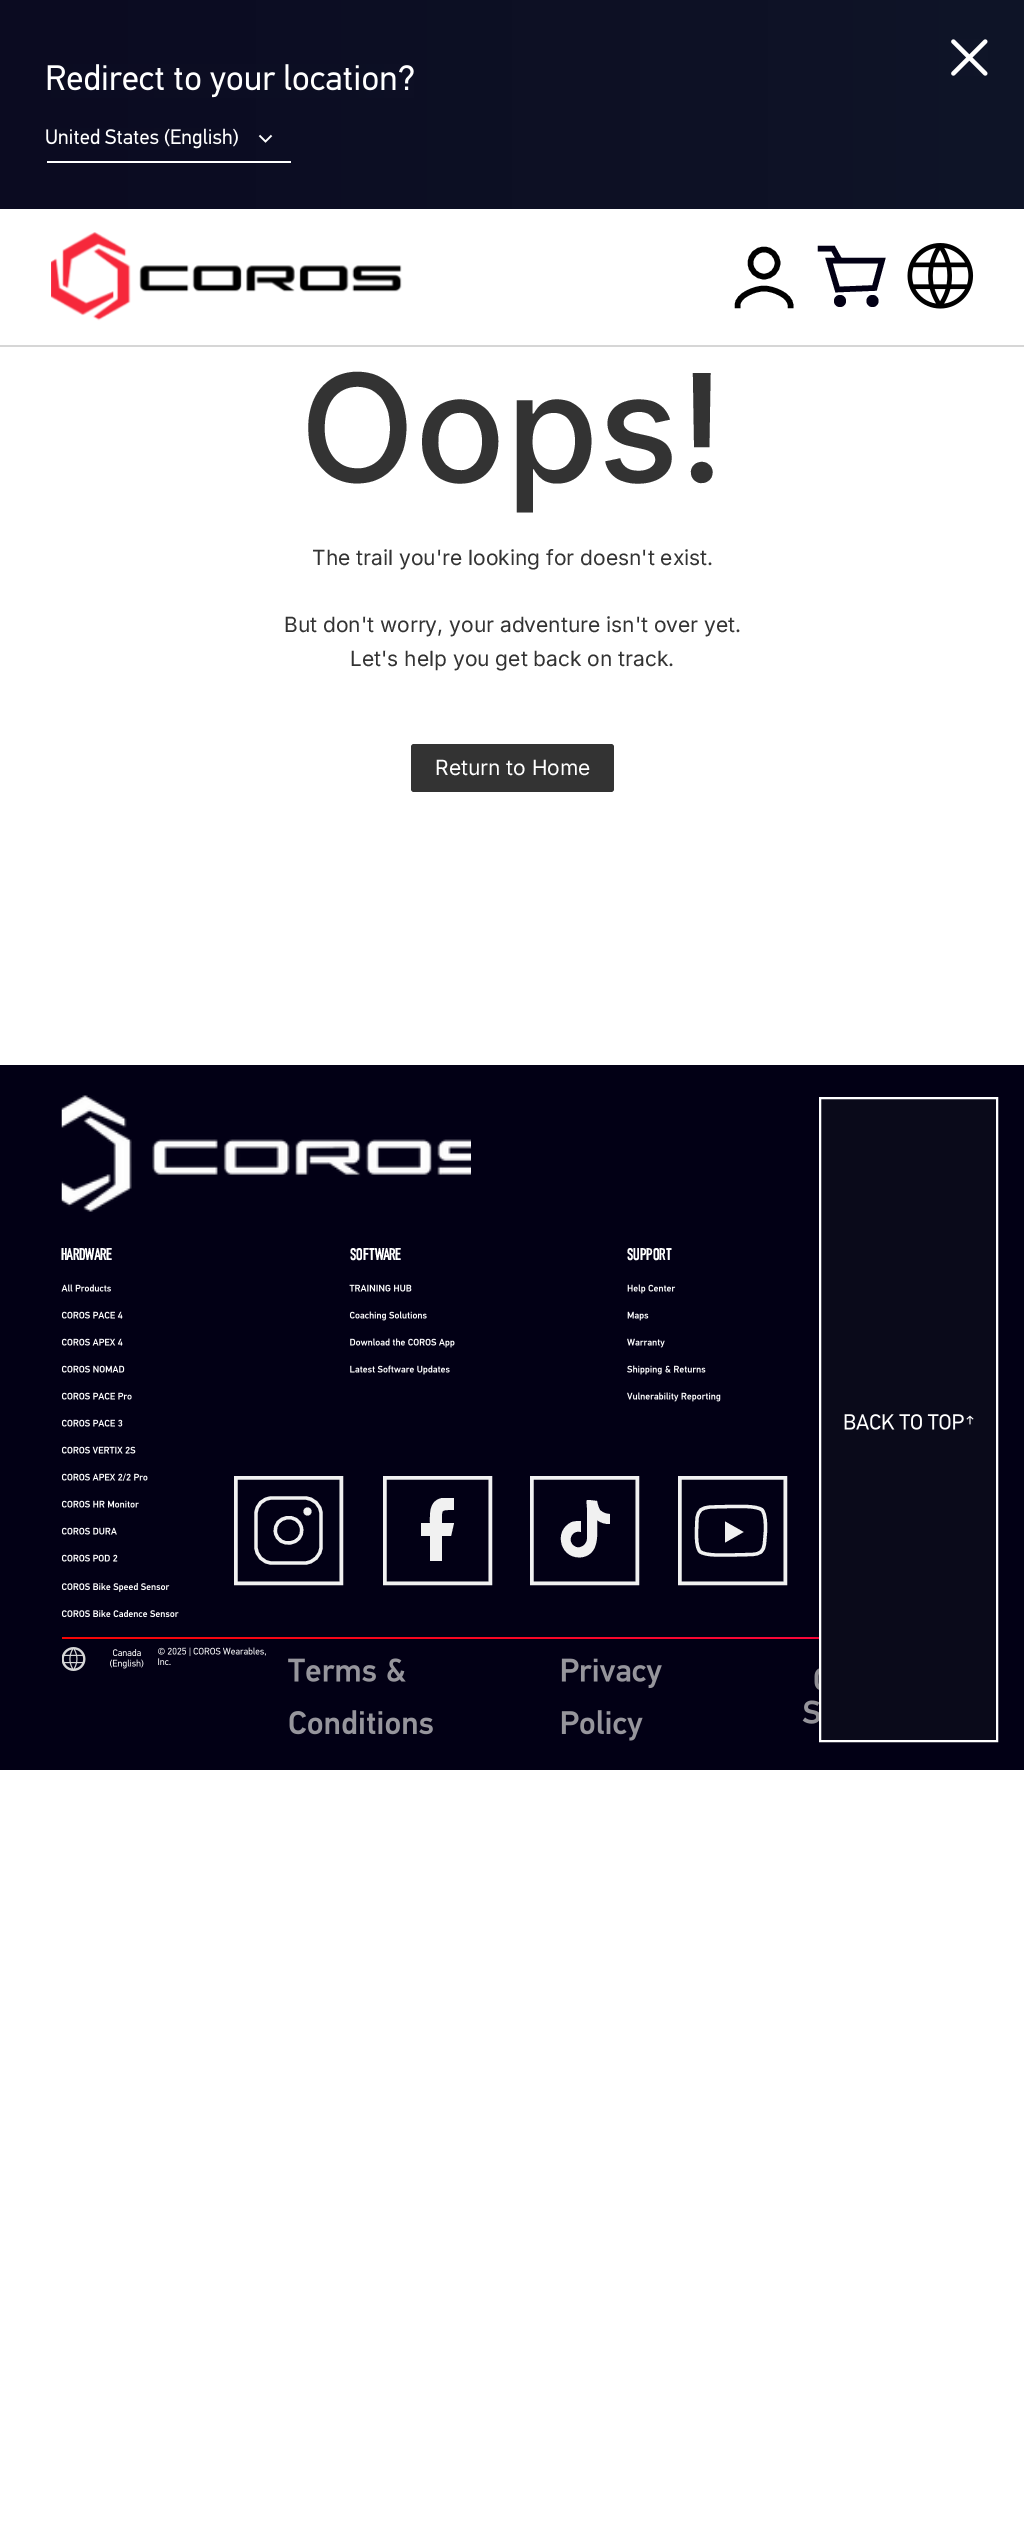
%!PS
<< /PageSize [1024 2542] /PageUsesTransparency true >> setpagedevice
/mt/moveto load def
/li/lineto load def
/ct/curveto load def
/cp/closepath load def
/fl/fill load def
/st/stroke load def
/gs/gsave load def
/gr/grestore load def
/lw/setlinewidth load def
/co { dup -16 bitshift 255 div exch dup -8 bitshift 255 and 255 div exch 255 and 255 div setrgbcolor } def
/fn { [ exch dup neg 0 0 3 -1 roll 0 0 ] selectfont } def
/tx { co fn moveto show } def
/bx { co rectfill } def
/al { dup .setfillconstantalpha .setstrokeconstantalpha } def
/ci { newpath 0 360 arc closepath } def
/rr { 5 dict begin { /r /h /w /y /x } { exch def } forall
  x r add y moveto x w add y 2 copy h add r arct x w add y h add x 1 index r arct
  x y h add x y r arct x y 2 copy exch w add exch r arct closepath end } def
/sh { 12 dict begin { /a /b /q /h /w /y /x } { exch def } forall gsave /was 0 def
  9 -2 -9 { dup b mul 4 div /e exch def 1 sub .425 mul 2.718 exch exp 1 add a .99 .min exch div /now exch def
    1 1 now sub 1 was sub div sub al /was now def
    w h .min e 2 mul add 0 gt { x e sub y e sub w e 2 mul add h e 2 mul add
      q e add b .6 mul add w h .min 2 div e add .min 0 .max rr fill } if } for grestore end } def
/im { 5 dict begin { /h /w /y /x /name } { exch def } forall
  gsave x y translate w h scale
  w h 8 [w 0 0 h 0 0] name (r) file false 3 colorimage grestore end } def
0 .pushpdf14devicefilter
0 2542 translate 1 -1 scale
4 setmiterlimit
0 0 1024 2542 16#FFFFFF bx
0 345 1024 2 16#D6D6D6 bx
gs 0 0 mt 1024 0 li 1024 209 li 0 209 li cp clip newpath
<< /ShadingType 2 /ColorSpace /DeviceRGB /Coords [0 104 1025 104] /Extend [true true] /Function << /FunctionType 2 /Domain [0 1] /C0 [.043 .043 .129] /C1 [.059 .082 .157] /N 1 >> >> shfill gr
(media/1.raw) 951 39 37 37 im
(media/2.raw) 47 64 367 34 im
47 161 244 2 16#FFFFFF bx
(media/3.raw) 46 128 192 21 im
1.5 lw
271.5 135.5 mt 265.5 141.5 li 259.5 135.5 li st
(media/4.raw) 51 232 351 89 im
16#000000 co
5.5 lw
2 setlinecap
790.5 305.5 mt 790.5 295 772.5 288.5 764 288.5 ct 755.5 288.5 737.5 295 737.5 305.5 ct st
0 setlinecap
764 263 13.5 ci st
16#020015 co
2 setlinecap
820.5 248.5 mt 833 248.5 li 838 257.5 li st
874.5 288 mt 837.5 289.5 li 829 260.5 li 882 260.5 li cp st
872.5 301 6 ci fl
840 301 6 ci fl
(media/5.raw) 907 243 67 66 im
16#333333 co
411 744 203 48 3 rr fl
0 1065 1024 705 16#020015 bx
(media/6.raw) 61 1095 410 117 im
gs 62 1637 mt 819 1637 li 819 1639 li 62 1639 li cp clip newpath
<< /ShadingType 2 /ColorSpace /DeviceRGB /Coords [963 1645 62 1629] /Extend [true true] /Function << /FunctionType 3 /Domain [0 1] /Functions [<< /FunctionType 2 /Domain [0 1] /C0 [.984 .027 .259] /C1 [.984 .027 .259] /N 1 >> << /FunctionType 2 /Domain [0 1] /C0 [.984 .027 .259] /C1 [.969 .02 .02] /N 1 >>] /Bounds [.04] /Encode [0 1 0 1] >> >> shfill gr
(media/41.raw) 814 1668 5 22 im
(media/42.raw) 802 1700 17 24 im
16#000000 co
819 1100 179 645 0 5.5 .12 sh
16#0A0A1A co
820 1098 mt 997 1098 li 997 1741 li 820 1741 li cp gs fl gr
16#FFFFFF co
2 lw
0 setlinecap
st
(media/7.raw) 844 1414 120 16 im
(media/8.raw) 966 1415 8 10 im
(media/9.raw) 61 1284 50 8 im
(media/10.raw) 61 1311 62 8 im
(media/11.raw) 61 1338 62 8 im
(media/12.raw) 61 1365 64 8 im
(media/13.raw) 61 1392 71 8 im
(media/14.raw) 61 1419 62 8 im
(media/15.raw) 61 1446 75 8 im
(media/16.raw) 61 1473 87 8 im
(media/17.raw) 61 1500 78 8 im
(media/18.raw) 61 1527 56 8 im
(media/19.raw) 61 1554 57 8 im
(media/20.raw) 61 1583 109 9 im
(media/21.raw) 61 1610 118 8 im
(media/22.raw) 349 1284 63 8 im
(media/23.raw) 349 1311 78 10 im
(media/24.raw) 350 1338 105 10 im
(media/25.raw) 350 1365 100 10 im
(media/26.raw) 627 1284 49 10 im
(media/27.raw) 627 1311 22 10 im
(media/28.raw) 627 1338 38 10 im
(media/29.raw) 627 1365 79 10 im
(media/30.raw) 627 1392 94 10 im
16#F1F1F1 co
3.5 lw
235.75 1477.75 105.5 105.5 rectstroke
307.5 1511.5 4 ci fl
3.3 lw
1 setlinecap
1 setlinejoin
306.5 1512.5 mt 306.5 1512.5 li 272 1498 mt 304.5 1498 li 313.5 1498 321 1505 321 1514 ct 321 1546.5 li 321 1555.5 313.5 1563 304.5 1563 ct 272 1563 li 263 1563 256 1555.5 256 1546.5 ct 256 1514 li 256 1505 263 1498 272 1498 ct cp 301.5 1528.5 mt 304 1545 278.5 1549 275.5 1532.5 ct 273 1515.5 299 1511.5 301.5 1528.5 ct cp st
3.5 lw
0 setlinecap
0 setlinejoin
384.75 1477.75 105.5 105.5 rectstroke
454 1498 mt 442 1498 li 429 1501 430 1513 430 1523 ct 421 1523 li 421 1536 li 430 1536 li 430 1561 li 442 1561 li 442 1536 li 451 1536 li 454 1523 li 442 1523 li 442 1509 440 1510 454 1510 ct cp fl
531.75 1477.75 105.5 105.5 rectstroke
610 1524 mt 605 1524 601 1523 597 1520 ct 597 1533 600 1553 583 1557 ct 561 1561 552 1531 572 1522 ct 575 1521 578 1521 581 1521 ct 581 1532 li 571 1529 566 1543 576 1547 ct 581 1549 587 1544 587 1539 ct 587 1508 li 587 1501 585 1500 589 1500 ct 597 1501 li 597 1501 598 1507 600 1510 ct 603 1513 607 1514 610 1514 ct cp fl
679.75 1477.75 105.5 105.5 rectstroke
3.3 lw
1 setlinecap
1 setlinejoin
762 1510 mt 766 1514.5 765.5 1525.5 765.5 1531 ct 764.5 1543 li 763.5 1552 760.5 1554 751.5 1554.5 ct 731 1555 li 724 1555 705 1556 700 1551.5 ct 696 1547 696.5 1536.5 696.5 1531 ct 697 1518.5 li 698.5 1509.5 701.5 1508 710.5 1507 ct 731 1506.5 li 737.5 1506.5 757 1505.5 762 1510 ct cp st
743.5 1532 mt 725 1542.5 li 725 1521.5 li cp fl
(media/31.raw) 62 1647 24 24 im
(media/32.raw) 113 1649 28 7 im
(media/33.raw) 110 1659 34 10 im
(media/34.raw) 158 1647 29 8 im
(media/35.raw) 189 1647 77 10 im
(media/36.raw) 158 1658 13 7 im
(media/37.raw) 288 1658 118 24 im
(media/38.raw) 289 1710 144 25 im
(media/39.raw) 561 1658 101 31 im
(media/40.raw) 561 1710 82 31 im
(Oops!) 300 482 /Inter-Medium 150 16#333333 tx
(The trail you're looking for doesn't exist.) 312 565 /Inter-Regular 21 16#333333 tx
(But don't worry, your adventure isn't over yet.) 284 632 /Inter-Regular 21 16#333333 tx
(Let's help you get back on track.) 350 666 /Inter-Regular 21 16#333333 tx
(Return to Home) 435 775 /Inter-Regular 21 16#FFFFFF tx
(HARDWARE) 61 1260 /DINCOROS-Bold 17 16#FFFFFF tx
(SOFTWARE) 350 1260 /DINCOROS-Bold 17 16#FFFFFF tx
(SUPPORT) 627 1260 /DINCOROS-Bold 17 16#FFFFFF tx
.poppdf14devicefilter showpage
